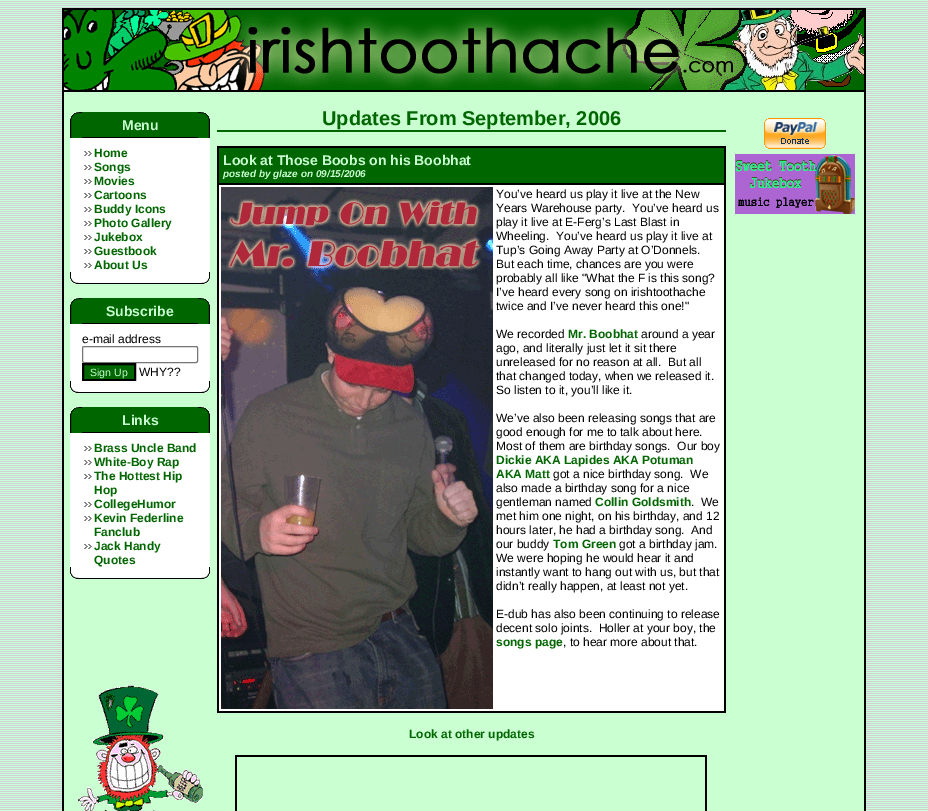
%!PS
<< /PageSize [928 811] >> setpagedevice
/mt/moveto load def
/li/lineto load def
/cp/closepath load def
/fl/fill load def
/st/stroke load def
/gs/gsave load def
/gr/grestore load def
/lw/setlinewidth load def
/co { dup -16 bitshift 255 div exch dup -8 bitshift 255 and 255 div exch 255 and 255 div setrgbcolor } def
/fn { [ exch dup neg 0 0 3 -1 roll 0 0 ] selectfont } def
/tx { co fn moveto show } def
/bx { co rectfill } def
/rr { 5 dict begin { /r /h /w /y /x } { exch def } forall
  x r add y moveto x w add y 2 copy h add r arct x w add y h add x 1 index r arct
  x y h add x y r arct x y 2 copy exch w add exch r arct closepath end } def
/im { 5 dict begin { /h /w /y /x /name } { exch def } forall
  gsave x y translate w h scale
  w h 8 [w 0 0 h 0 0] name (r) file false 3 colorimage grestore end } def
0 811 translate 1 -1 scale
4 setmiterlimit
0 0 928 811 16#FFFFFF bx
(media/1.raw) 0 0 928 811 im
64 92 800 719 16#CAFFD2 bx
62 8 804 2 16#000000 bx
864 8 2 803 16#000000 bx
62 8 2 803 16#000000 bx
62 90 804 2 16#000000 bx
(media/2.raw) 64 10 800 80 im
(media/3.raw) 70 112 12 26 im
82 112 116 25 16#006600 bx
82 137 116 1 16#000000 bx
(media/4.raw) 198 112 12 26 im
70 138 140 134 16#FFFFFF bx
(media/5.raw) 84 151 8 5 im
(media/5.raw) 84 165 8 5 im
(media/5.raw) 84 179 8 5 im
(media/5.raw) 84 193 8 5 im
(media/5.raw) 84 207 8 5 im
(media/5.raw) 84 221 8 5 im
(media/5.raw) 84 235 8 5 im
(media/5.raw) 84 249 8 5 im
(media/5.raw) 84 263 8 5 im
(media/6.raw) 70 272 12 12 im
82 272 116 11 16#FFFFFF bx
82 283 116 1 16#000000 bx
(media/7.raw) 198 272 12 12 im
(media/3.raw) 70 298 12 26 im
82 298 116 25 16#006600 bx
82 323 116 1 16#000000 bx
(media/4.raw) 198 298 12 26 im
70 324 140 57 16#FFFFFF bx
16#767676 co
82.5 346.5 115 16 1.5 rr st
16#006600 co
83 364 mt 135 364 li 135 380 li 83 380 li cp gs fl gr
16#000000 co
2 lw
st
(media/6.raw) 70 381 12 12 im
82 381 116 11 16#FFFFFF bx
82 392 116 1 16#000000 bx
(media/7.raw) 198 381 12 12 im
(media/3.raw) 70 407 12 26 im
82 407 116 25 16#006600 bx
82 432 116 1 16#000000 bx
(media/4.raw) 198 407 12 26 im
70 433 140 134 16#FFFFFF bx
(media/5.raw) 84 446 8 5 im
(media/5.raw) 84 460 8 5 im
(media/5.raw) 84 474 8 5 im
(media/5.raw) 84 502 8 5 im
(media/5.raw) 84 516 8 5 im
(media/5.raw) 84 544 8 5 im
(media/6.raw) 70 567 12 12 im
82 567 116 11 16#FFFFFF bx
82 578 116 1 16#000000 bx
(media/7.raw) 198 567 12 12 im
217 130 509 2 16#006600 bx
217 146 509 2 16#000000 bx
724 146 2 567 16#000000 bx
217 711 509 2 16#000000 bx
217 146 2 567 16#000000 bx
219 148 505 35 16#006600 bx
217 183 509 2 16#000000 bx
219 185 505 526 16#FFFFFF bx
(media/8.raw) 221 187 272 522 im
235 755 472 2 16#000000 bx
705 755 2 56 16#000000 bx
235 755 2 56 16#000000 bx
(media/9.raw) 764 118 62 31 im
(media/10.raw) 735 154 120 60 im
(media/11.raw) 78 685 125 126 im
(Menu) 122 130 /LiberationSans-Bold 14 16#CAFFD2 tx
(Home) 94 157 /LiberationSans-Bold 12 16#006600 tx
(Songs) 94 171 /LiberationSans-Bold 12 16#006600 tx
(Movies) 94 185 /LiberationSans-Bold 12 16#006600 tx
(Cartoons) 94 199 /LiberationSans-Bold 12 16#006600 tx
(Buddy Icons) 94 213 /LiberationSans-Bold 12 16#006600 tx
(Photo Gallery) 94 227 /LiberationSans-Bold 12 16#006600 tx
(Jukebox) 94 241 /LiberationSans-Bold 12 16#006600 tx
(Guestbook) 94 255 /LiberationSans-Bold 12 16#006600 tx
(About Us) 94 269 /LiberationSans-Bold 12 16#006600 tx
(Subscribe) 106 316 /LiberationSans-Bold 14 16#CAFFD2 tx
(e-mail address) 82 343 /LiberationSans-Regular 12 16#000000 tx
(Sign Up) 90 376 /LiberationSans-Regular 10.5 16#CAFFD2 tx
(WHY??) 139 376 /LiberationSans-Regular 12 16#000000 tx
(Links) 122 425 /LiberationSans-Bold 14 16#CAFFD2 tx
(Brass Uncle Band) 94 452 /LiberationSans-Bold 12 16#006600 tx
(White-Boy Rap) 94 466 /LiberationSans-Bold 12 16#006600 tx
(The Hottest Hip) 94 480 /LiberationSans-Bold 12 16#006600 tx
(Hop) 94 494 /LiberationSans-Bold 12 16#006600 tx
(CollegeHumor) 94 508 /LiberationSans-Bold 12 16#006600 tx
(Kevin Federline) 94 522 /LiberationSans-Bold 12 16#006600 tx
(Fanclub) 94 536 /LiberationSans-Bold 12 16#006600 tx
(Jack Handy) 94 550 /LiberationSans-Bold 12 16#006600 tx
(Quotes) 94 564 /LiberationSans-Bold 12 16#006600 tx
(Updates From September, 2006) 322 125 /LiberationSans-Bold 20 16#006600 tx
(Look at Those Boobs on his Boobhat) 223 165 /LiberationSans-Bold 14 16#CAFFD2 tx
(posted by glaze on 09/15/2006) 223 177 /LiberationSans-BoldItalic 10 16#CAFFD2 tx
(You’ve heard us play it live at the New) 496 198 /LiberationSans-Regular 12 16#000000 tx
(Years Warehouse party.  You’ve heard us) 496 212 /LiberationSans-Regular 12 16#000000 tx
(play it live at E-Ferg’s Last Blast in) 496 226 /LiberationSans-Regular 12 16#000000 tx
(Wheeling.  You’ve heard us play it live at) 496 240 /LiberationSans-Regular 12 16#000000 tx
(Tup’s Going Away Party at O’Donnels.) 496 254 /LiberationSans-Regular 12 16#000000 tx
(But each time, chances are you were) 496 268 /LiberationSans-Regular 12 16#000000 tx
(probably all like "What the F is this song?) 496 282 /LiberationSans-Regular 12 16#000000 tx
(I’ve heard every song on irishtoothache) 496 296 /LiberationSans-Regular 12 16#000000 tx
(twice and I’ve never heard this one!") 496 310 /LiberationSans-Regular 12 16#000000 tx
(We recorded) 496 338 /LiberationSans-Regular 12 16#000000 tx
(Mr. Boobhat) 568 338 /LiberationSans-Bold 12 16#006600 tx
(around a year) 641 338 /LiberationSans-Regular 12 16#000000 tx
(ago, and literally just let it sit there) 496 352 /LiberationSans-Regular 12 16#000000 tx
(unreleased for no reason at all.  But all) 496 366 /LiberationSans-Regular 12 16#000000 tx
(that changed today, when we released it.) 496 380 /LiberationSans-Regular 12 16#000000 tx
(So listen to it, you’ll like it.) 496 394 /LiberationSans-Regular 12 16#000000 tx
(We’ve also been releasing songs that are) 496 422 /LiberationSans-Regular 12 16#000000 tx
(good enough for me to talk about here.) 496 436 /LiberationSans-Regular 12 16#000000 tx
(Most of them are birthday songs.  Our boy) 496 450 /LiberationSans-Regular 12 16#000000 tx
(Dickie AKA Lapides AKA Potuman) 496 464 /LiberationSans-Bold 12 16#006600 tx
(AKA Matt) 496 478 /LiberationSans-Bold 12 16#006600 tx
(got a nice birthday song.  We) 553 478 /LiberationSans-Regular 12 16#000000 tx
(also made a birthday song for a nice) 496 492 /LiberationSans-Regular 12 16#000000 tx
(gentleman named) 496 506 /LiberationSans-Regular 12 16#000000 tx
(Collin Goldsmith) 595 506 /LiberationSans-Bold 12 16#006600 tx
(.  We) 691 506 /LiberationSans-Regular 12 16#000000 tx
(met him one night, on his birthday, and 12) 496 520 /LiberationSans-Regular 12 16#000000 tx
(hours later, he had a birthday song.  And) 496 534 /LiberationSans-Regular 12 16#000000 tx
(our buddy) 496 548 /LiberationSans-Regular 12 16#000000 tx
(Tom Green) 553 548 /LiberationSans-Bold 12 16#006600 tx
(got a birthday jam.) 619 548 /LiberationSans-Regular 12 16#000000 tx
(We were hoping he would hear it and) 496 562 /LiberationSans-Regular 12 16#000000 tx
(instantly want to hang out with us, but that) 496 576 /LiberationSans-Regular 12 16#000000 tx
(didn’t really happen, at least not yet.) 496 590 /LiberationSans-Regular 12 16#000000 tx
(E-dub has also been continuing to release) 496 618 /LiberationSans-Regular 12 16#000000 tx
(decent solo joints.  Holler at your boy, the) 496 632 /LiberationSans-Regular 12 16#000000 tx
(songs page) 496 646 /LiberationSans-Bold 12 16#006600 tx
(, to hear more about that.) 563 646 /LiberationSans-Regular 12 16#000000 tx
(Look at other updates) 409 738 /LiberationSans-Bold 12 16#006600 tx
showpage
